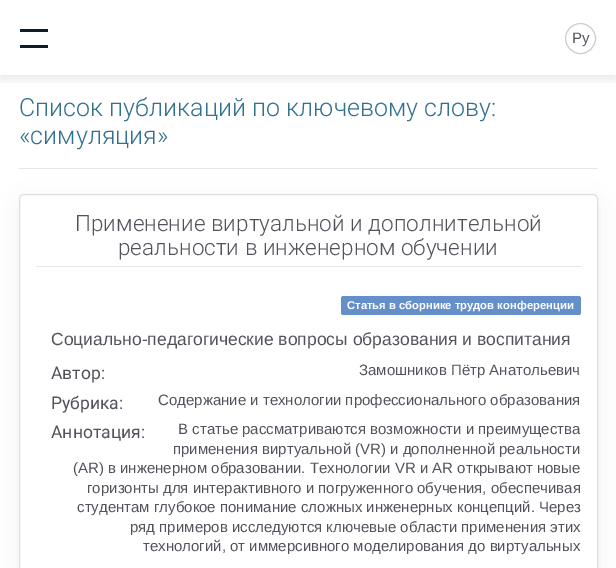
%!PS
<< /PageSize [616 568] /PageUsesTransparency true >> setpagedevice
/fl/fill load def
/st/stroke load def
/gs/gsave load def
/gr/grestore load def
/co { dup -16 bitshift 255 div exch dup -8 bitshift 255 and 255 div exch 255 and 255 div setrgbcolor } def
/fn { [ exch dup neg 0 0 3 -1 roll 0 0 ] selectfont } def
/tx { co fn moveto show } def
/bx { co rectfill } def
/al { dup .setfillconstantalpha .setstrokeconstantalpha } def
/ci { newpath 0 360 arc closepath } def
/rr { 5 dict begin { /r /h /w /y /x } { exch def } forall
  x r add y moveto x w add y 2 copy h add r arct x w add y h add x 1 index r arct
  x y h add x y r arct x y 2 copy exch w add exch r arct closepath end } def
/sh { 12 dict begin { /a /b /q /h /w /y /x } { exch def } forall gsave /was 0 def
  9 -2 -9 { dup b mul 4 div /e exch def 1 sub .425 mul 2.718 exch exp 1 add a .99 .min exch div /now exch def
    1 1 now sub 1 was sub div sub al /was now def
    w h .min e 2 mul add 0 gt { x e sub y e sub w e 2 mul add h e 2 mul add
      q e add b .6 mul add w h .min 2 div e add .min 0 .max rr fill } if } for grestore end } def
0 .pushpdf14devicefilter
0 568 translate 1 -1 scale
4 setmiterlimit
0 0 616 568 16#FFFFFF bx
gs
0 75 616 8 rectclip
16#000000 co
0 3 616 75 0 6 .1 sh
gr
20 29 28 3 16#0E1C2A bx
20 45 28 3 16#0E1C2A bx
16#CCCCCC co
580.5 38.5 15 ci st
19 168 579 1 16#E6E6E6 bx
16#000000 co
19 200 579 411 5 12.5 .05 sh
16#FFFFFF co
19.5 194.5 578 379 4.5 rr gs fl gr
16#DFDFDF co
st
36 266 545 1 16#E6E6E6 bx
16#648FC9 co
341 296 240 19 2.5 rr fl
(Ру) 572 43 /LiberationSans-Regular 15 16#52525C tx
(Список публикаций по ключевому слову:) 19 116 /Roboto-Light 25 16#31708F tx
(«симуляция») 19 144 /Roboto-Light 25 16#31708F tx
(Применение виртуальной и дополнительной) 75 231 /Roboto-Light 22.5 16#52525C tx
(реальности в инженерном обучении) 118 255 /Roboto-Light 22.5 16#52525C tx
(Статья в сборнике трудов конференции) 347 309 /LiberationSans-Bold 11.25 16#FFFFFF tx
(Социально-педагогические вопросы образования и воспитания) 51 345 /LiberationSans-Regular 17.5 16#52525C tx
(Автор:) 51 379 /Roboto-Regular 17.5 16#52525C tx
(Замошников Пётр Анатольевич) 359 375 /LiberationSans-Regular 15 16#52525C tx
(Рубрика:) 51 409 /Roboto-Regular 17.5 16#52525C tx
(Содержание и технологии профессионального образования) 158 405 /LiberationSans-Regular 15 16#52525C tx
(В статье рассматриваются возможности и преимущества) 178 434 /LiberationSans-Regular 15 16#52525C tx
(применения виртуальной \(VR\) и дополненной реальности) 173 454 /LiberationSans-Regular 15 16#52525C tx
(\(AR\) в инженерном образовании. Технологии VR и AR открывают новые) 73 473 /LiberationSans-Regular 15 16#52525C tx
(горизонты для интерактивного и погруженного обучения, обеспечивая) 87 493 /LiberationSans-Regular 15 16#52525C tx
(студентам глубокое понимание сложных инженерных концепций. Через) 77 512 /LiberationSans-Regular 15 16#52525C tx
(ряд примеров исследуются ключевые области применения этих) 130 532 /LiberationSans-Regular 15 16#52525C tx
(технологий, от иммерсивного моделирования до виртуальных) 143 551 /LiberationSans-Regular 15 16#52525C tx
(Аннотация:) 51 438 /Roboto-Regular 17.5 16#52525C tx
.poppdf14devicefilter showpage
